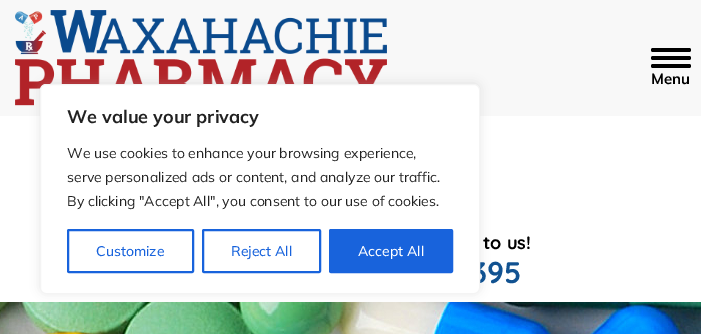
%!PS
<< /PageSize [701 334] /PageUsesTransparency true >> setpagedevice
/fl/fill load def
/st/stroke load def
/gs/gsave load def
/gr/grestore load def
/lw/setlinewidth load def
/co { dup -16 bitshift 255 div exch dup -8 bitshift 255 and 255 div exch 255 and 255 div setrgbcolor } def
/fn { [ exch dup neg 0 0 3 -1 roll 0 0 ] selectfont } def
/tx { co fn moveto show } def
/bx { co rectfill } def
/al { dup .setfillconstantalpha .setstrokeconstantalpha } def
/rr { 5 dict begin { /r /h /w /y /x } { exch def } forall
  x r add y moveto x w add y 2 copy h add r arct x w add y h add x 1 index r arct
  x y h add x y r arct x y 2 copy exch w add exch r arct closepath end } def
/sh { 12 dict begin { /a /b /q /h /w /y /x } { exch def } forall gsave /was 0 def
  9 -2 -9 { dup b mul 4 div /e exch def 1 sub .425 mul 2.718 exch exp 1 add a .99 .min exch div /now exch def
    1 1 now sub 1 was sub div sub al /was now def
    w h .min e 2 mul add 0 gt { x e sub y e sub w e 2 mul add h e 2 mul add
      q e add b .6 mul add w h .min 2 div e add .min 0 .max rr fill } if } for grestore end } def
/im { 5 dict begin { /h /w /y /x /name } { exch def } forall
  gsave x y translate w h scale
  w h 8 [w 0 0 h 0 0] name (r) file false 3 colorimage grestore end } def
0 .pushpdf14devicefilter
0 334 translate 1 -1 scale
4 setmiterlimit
0 0 701 334 16#FFFFFF bx
0 0 701 116 16#F8F8F8 bx
(media/1.raw) 15 10 372 96 im
(media/2.raw) 0 302 701 32 im
16#ACABAB co
40 83 440 210 6 5 .3 sh
16#000000 co
651 56 40 4 2 rr fl
651 48 40 4 2 rr fl
651 64 40 4 2 rr fl
(Menu) 651 84 /Mulish-Bold 15 16#000000 tx
(to us!) 483 249 /Quicksand-Bold 18 16#000000 tx
(395) 471 283 /Quicksand-Bold 30 16#115291 tx
16#FFFFFF co
40.5 84.5 439 209 5.5 rr gs fl gr
16#F4F4F4 co
st
16#1863DC co
330 230 122 42 1 rr gs fl gr
2 lw
st
(Accept All) 358 256 /Mulish-Medium 14 16#FFFFFF tx
16#1863DC co
203 230 117 42 1 rr st
(Reject All) 231 256 /Mulish-Medium 14 16#1863DC tx
68 230 125 42 1 rr st
(Customize) 96 256 /Mulish-Medium 14 16#1863DC tx
(By clicking "Accept All", you consent to our use of cookies.) 67 206 /Mulish-Regular 14 16#212121 tx
(serve personalized ads or content, and analyze our traffic.) 67 182 /Mulish-Regular 14 16#212121 tx
(We use cookies to enhance your browsing experience,) 67 158 /Mulish-Regular 14 16#212121 tx
(We value your privacy) 67 123 /Mulish-Bold 18 16#212121 tx
.poppdf14devicefilter showpage
